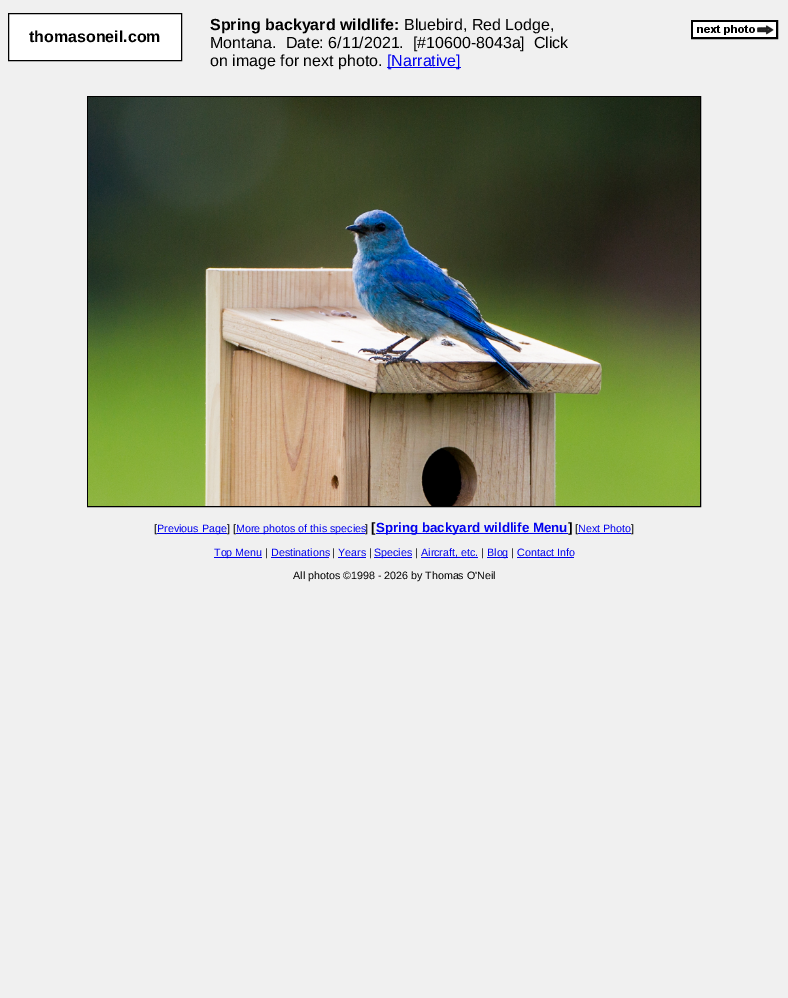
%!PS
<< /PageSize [788 998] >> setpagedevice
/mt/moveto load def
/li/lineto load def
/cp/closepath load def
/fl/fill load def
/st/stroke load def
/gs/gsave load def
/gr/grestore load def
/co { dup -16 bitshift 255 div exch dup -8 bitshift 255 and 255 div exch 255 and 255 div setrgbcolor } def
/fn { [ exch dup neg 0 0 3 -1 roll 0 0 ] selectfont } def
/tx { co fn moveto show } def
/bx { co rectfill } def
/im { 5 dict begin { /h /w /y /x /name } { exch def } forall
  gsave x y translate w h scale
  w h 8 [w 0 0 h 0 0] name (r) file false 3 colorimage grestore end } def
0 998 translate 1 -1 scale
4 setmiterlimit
0 0 788 998 16#F0F0F0 bx
16#FFFFFF co
8.5 13.5 mt 181.5 13.5 li 181.5 60.5 li 8.5 60.5 li cp gs fl gr
16#000000 co
st
387 67 74 1 16#0000EE bx
16#000000 co
691.5 20.5 86 18 rectstroke
(media/1.raw) 692 21 85 17 im
87.5 96.5 613 410 rectstroke
(media/2.raw) 88 97 612 409 im
236 533 129 1 16#0000EE bx
376 533 192 1 16#0000EE bx
578 533 53 1 16#0000EE bx
214 557 48 1 16#0000EE bx
271 557 58 1 16#0000EE bx
338 557 28 1 16#0000EE bx
374 557 38 1 16#0000EE bx
421 557 57 1 16#0000EE bx
487 557 21 1 16#0000EE bx
517 557 57 1 16#0000EE bx
(thomasoneil.com) 29 42 /LiberationSans-Bold 16 16#000000 tx
(Spring backyard wildlife:) 210 30 /LiberationSans-Bold 16 16#000000 tx
(Bluebird, Red Lodge,) 404 30 /LiberationSans-Regular 16 16#000000 tx
(Montana.  Date: 6/11/2021.  [#10600-8043a]  Click) 210 48 /LiberationSans-Regular 16 16#000000 tx
(on image for next photo.) 210 66 /LiberationSans-Regular 16 16#000000 tx
([Narrative]) 387 66 /LiberationSans-Regular 16 16#0000EE tx
([) 154 532 /LiberationSans-Regular 10.7 16#000000 tx
157 533 70 1 16#0000EE bx
(Previous Page) 157 532 /LiberationSans-Regular 10.7 16#0000EE tx
(] [) 227 532 /LiberationSans-Regular 10.7 16#000000 tx
(More photos of this species) 236 532 /LiberationSans-Regular 10.7 16#0000EE tx
(]) 365 532 /LiberationSans-Regular 10.7 16#000000 tx
([) 371 532 /LiberationSans-Bold 13.3 16#000000 tx
(Spring backyard wildlife Menu) 376 532 /LiberationSans-Bold 13.3 16#0000EE tx
(]) 568 532 /LiberationSans-Bold 13.3 16#000000 tx
([) 575 532 /LiberationSans-Regular 10.7 16#000000 tx
(Next Photo) 578 532 /LiberationSans-Regular 10.7 16#0000EE tx
(]) 631 532 /LiberationSans-Regular 10.7 16#000000 tx
(Top Menu) 214 556 /LiberationSans-Regular 10.7 16#0000EE tx
(|) 265 556 /LiberationSans-Regular 10.7 16#000000 tx
(Destinations) 271 556 /LiberationSans-Regular 10.7 16#0000EE tx
(|) 332 556 /LiberationSans-Regular 10.7 16#000000 tx
(Years) 338 556 /LiberationSans-Regular 10.7 16#0000EE tx
(|) 369 556 /LiberationSans-Regular 10.7 16#000000 tx
(Species) 374 556 /LiberationSans-Regular 10.7 16#0000EE tx
(|) 415 556 /LiberationSans-Regular 10.7 16#000000 tx
(Aircraft, etc.) 421 556 /LiberationSans-Regular 10.7 16#0000EE tx
(|) 481 556 /LiberationSans-Regular 10.7 16#000000 tx
(Blog) 487 556 /LiberationSans-Regular 10.7 16#0000EE tx
(|) 511 556 /LiberationSans-Regular 10.7 16#000000 tx
(Contact Info) 517 556 /LiberationSans-Regular 10.7 16#0000EE tx
(All photos ©1998 - 2026 by Thomas O'Neil) 293 579 /LiberationSans-Regular 10.7 16#000000 tx
showpage
